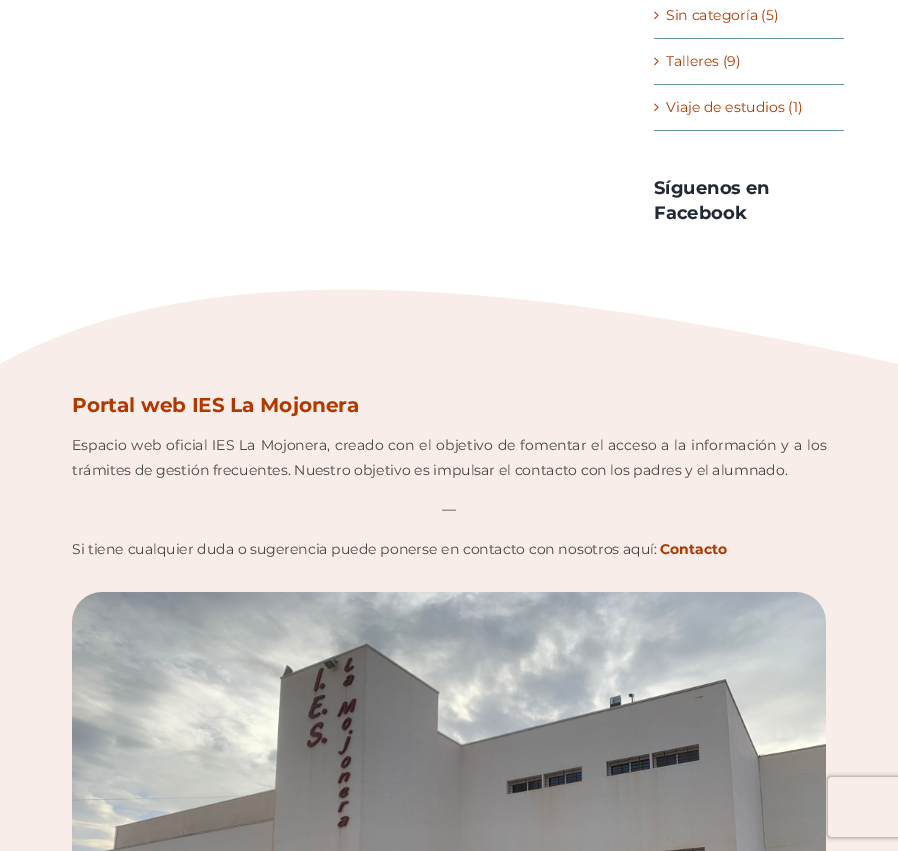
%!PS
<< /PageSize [898 851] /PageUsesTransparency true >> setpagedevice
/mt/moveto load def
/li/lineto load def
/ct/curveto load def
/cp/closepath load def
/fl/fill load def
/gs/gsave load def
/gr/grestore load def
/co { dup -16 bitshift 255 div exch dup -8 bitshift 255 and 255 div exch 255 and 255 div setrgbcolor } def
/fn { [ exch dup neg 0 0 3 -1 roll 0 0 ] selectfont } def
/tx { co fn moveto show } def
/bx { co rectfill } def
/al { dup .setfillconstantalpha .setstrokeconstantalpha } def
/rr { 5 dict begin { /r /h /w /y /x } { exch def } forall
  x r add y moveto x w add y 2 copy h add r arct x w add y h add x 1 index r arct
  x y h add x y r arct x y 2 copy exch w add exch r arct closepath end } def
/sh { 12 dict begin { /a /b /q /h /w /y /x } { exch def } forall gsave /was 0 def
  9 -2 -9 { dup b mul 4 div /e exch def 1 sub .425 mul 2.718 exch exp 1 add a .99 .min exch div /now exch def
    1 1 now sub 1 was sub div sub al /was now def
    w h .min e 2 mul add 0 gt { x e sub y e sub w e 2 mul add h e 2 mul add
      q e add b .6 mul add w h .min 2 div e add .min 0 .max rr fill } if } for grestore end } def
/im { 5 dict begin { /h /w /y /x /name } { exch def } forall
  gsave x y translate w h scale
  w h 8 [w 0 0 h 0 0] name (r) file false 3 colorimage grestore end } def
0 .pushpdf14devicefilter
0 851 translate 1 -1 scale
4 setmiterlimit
0 0 898 851 16#FFFFFF bx
654 38 190 1 16#649793 bx
(media/1.raw) 654 11 5 9 im
654 84 190 1 16#649793 bx
(media/1.raw) 654 57 5 9 im
654 130 190 1 16#649793 bx
(media/1.raw) 654 103 5 9 im
16#F8EDE8 co
0 364 mt 180 265 449 265 898 364 ct cp fl
0 364 898 487 16#F8EDE8 bx
gs
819 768 mt 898 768 li 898 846 li 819 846 li cp 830 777 mt 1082 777 li 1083 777 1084 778 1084 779 ct 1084 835 li 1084 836 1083 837 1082 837 ct 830 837 li 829 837 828 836 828 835 ct 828 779 li 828 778 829 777 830 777 ct cp eoclip newpath
16#808080 co
828 777 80 60 2 2.5 1 sh
gr
(media/2.raw) 72 592 754 259 im
(Sin categoría \(5\)) 666 20 /Montserrat-Regular 14 16#B13900 tx
(Talleres \(9\)) 666 66 /Montserrat-Regular 14 16#B13900 tx
(Viaje de estudios \(1\)) 666 112 /Montserrat-Regular 14 16#B13900 tx
(Síguenos en) 654 194 /Montserrat-Bold 18 16#212934 tx
(Facebook) 654 219 /Montserrat-Bold 18 16#212934 tx
(Portal web IES La Mojonera) 72 412 /Montserrat-Bold 20 16#B13900 tx
/Montserrat-Regular 14 fn
16#454545 co
72 450 mt 1.2 0 32 (Espacio web oficial IES La Mojonera, creado con el objetivo de fomentar el acceso a la información y a los) widthshow
(trámites de gestión frecuentes. Nuestro objetivo es impulsar el contacto con los padres y el alumnado.) 72 475 /Montserrat-Regular 14 16#454545 tx
(—) 442 514 /Montserrat-Regular 14 16#454545 tx
(Si tiene cualquier duda o sugerencia puede ponerse en contacto con nosotros aquí:) 72 554 /Montserrat-Regular 14 16#454545 tx
(Contacto) 660 554 /Montserrat-Bold 14 16#B13900 tx
.poppdf14devicefilter showpage
